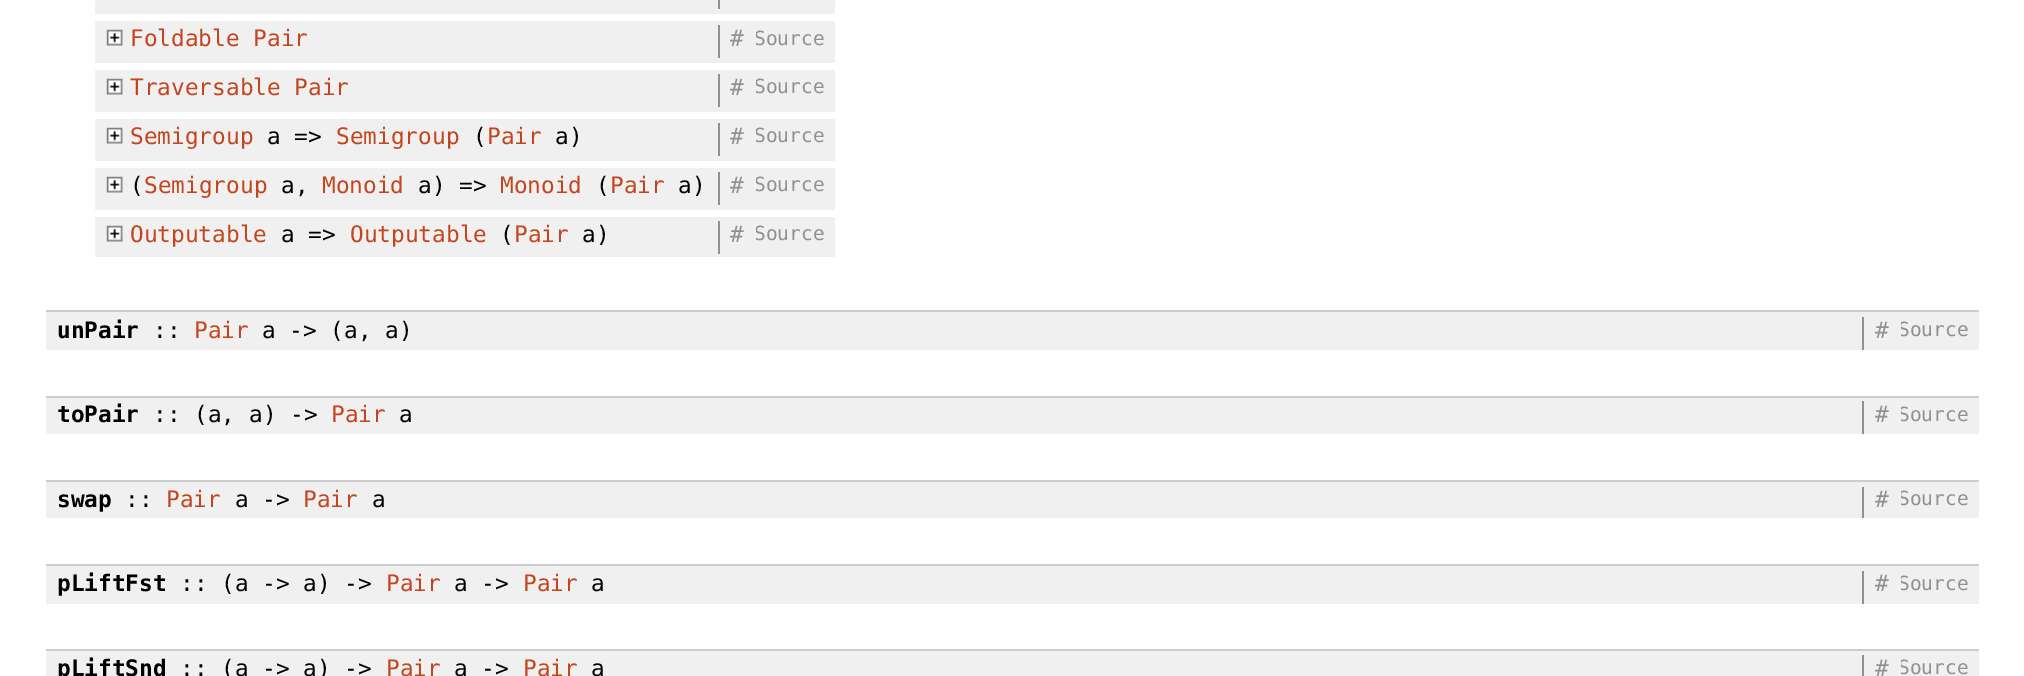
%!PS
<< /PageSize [2024 676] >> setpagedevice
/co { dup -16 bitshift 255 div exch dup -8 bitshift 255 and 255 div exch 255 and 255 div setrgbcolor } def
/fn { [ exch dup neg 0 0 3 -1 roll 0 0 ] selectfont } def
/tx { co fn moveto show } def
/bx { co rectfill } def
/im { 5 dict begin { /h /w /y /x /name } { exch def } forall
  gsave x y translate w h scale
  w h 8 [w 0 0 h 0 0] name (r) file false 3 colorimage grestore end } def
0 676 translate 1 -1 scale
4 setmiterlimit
0 0 2024 676 16#FFFFFF bx
95 0 740 14 16#F0F0F0 bx
718 0 2 9 16#919191 bx
95 21 740 42 16#F0F0F0 bx
(media/1.raw) 106 29 17 17 im
718 25 2 33 16#919191 bx
95 70 740 42 16#F0F0F0 bx
(media/1.raw) 106 78 17 17 im
718 74 2 33 16#919191 bx
95 119 740 42 16#F0F0F0 bx
(media/1.raw) 106 127 17 17 im
718 123 2 33 16#919191 bx
95 168 740 42 16#F0F0F0 bx
(media/1.raw) 106 176 17 17 im
718 172 2 33 16#919191 bx
95 217 740 40 16#F0F0F0 bx
(media/1.raw) 106 225 17 17 im
718 221 2 33 16#919191 bx
46 312 1933 38 16#F0F0F0 bx
46 310 1933 2 16#CCCCCC bx
1862 317 2 33 16#919191 bx
46 398 1933 36 16#F0F0F0 bx
46 396 1933 2 16#CCCCCC bx
1862 401 2 33 16#919191 bx
46 482 1933 36 16#F0F0F0 bx
46 480 1933 2 16#CCCCCC bx
1862 487 2 31 16#919191 bx
46 566 1933 38 16#F0F0F0 bx
46 564 1933 2 16#CCCCCC bx
1862 571 2 33 16#919191 bx
46 651 1933 25 16#F0F0F0 bx
46 649 1933 2 16#CCCCCC bx
1862 655 2 21 16#919191 bx
(Foldable Pair) 130 46 /DejaVuSansMono-Regular 22.75 16#C4451D tx
(#) 730 46 /DejaVuSansMono-Regular 22.75 16#919191 tx
(Source) 754 45 /DejaVuSansMono-Regular 19.5 16#919191 tx
754 32 2 13 16#F0F0F0 bx
(Traversable Pair) 130 95 /DejaVuSansMono-Regular 22.75 16#C4451D tx
(#) 730 95 /DejaVuSansMono-Regular 22.75 16#919191 tx
(Source) 754 93 /DejaVuSansMono-Regular 19.5 16#919191 tx
754 80 2 13 16#F0F0F0 bx
(Semigroup) 130 144 /DejaVuSansMono-Regular 22.75 16#C4451D tx
(a =>) 267 144 /DejaVuSansMono-Regular 22.75 16#000000 tx
(Semigroup) 336 144 /DejaVuSansMono-Regular 22.75 16#C4451D tx
(\() 473 144 /DejaVuSansMono-Regular 22.75 16#000000 tx
(Pair) 487 144 /DejaVuSansMono-Regular 22.75 16#C4451D tx
(a\)) 555 144 /DejaVuSansMono-Regular 22.75 16#000000 tx
(#) 730 144 /DejaVuSansMono-Regular 22.75 16#919191 tx
(Source) 754 142 /DejaVuSansMono-Regular 19.5 16#919191 tx
754 129 2 13 16#F0F0F0 bx
(\() 130 193 /DejaVuSansMono-Regular 22.75 16#000000 tx
(Semigroup) 144 193 /DejaVuSansMono-Regular 22.75 16#C4451D tx
(a,) 281 193 /DejaVuSansMono-Regular 22.75 16#000000 tx
(Monoid) 322 193 /DejaVuSansMono-Regular 22.75 16#C4451D tx
(a\) =>) 418 193 /DejaVuSansMono-Regular 22.75 16#000000 tx
(Monoid) 500 193 /DejaVuSansMono-Regular 22.75 16#C4451D tx
(\() 596 193 /DejaVuSansMono-Regular 22.75 16#000000 tx
(Pair) 610 193 /DejaVuSansMono-Regular 22.75 16#C4451D tx
(a\)) 678 193 /DejaVuSansMono-Regular 22.75 16#000000 tx
(#) 730 193 /DejaVuSansMono-Regular 22.75 16#919191 tx
(Source) 754 191 /DejaVuSansMono-Regular 19.5 16#919191 tx
754 178 2 13 16#F0F0F0 bx
(Outputable) 130 242 /DejaVuSansMono-Regular 22.75 16#C4451D tx
(a =>) 281 242 /DejaVuSansMono-Regular 22.75 16#000000 tx
(Outputable) 350 242 /DejaVuSansMono-Regular 22.75 16#C4451D tx
(\() 500 242 /DejaVuSansMono-Regular 22.75 16#000000 tx
(Pair) 514 242 /DejaVuSansMono-Regular 22.75 16#C4451D tx
(a\)) 582 242 /DejaVuSansMono-Regular 22.75 16#000000 tx
(#) 730 242 /DejaVuSansMono-Regular 22.75 16#919191 tx
(Source) 754 240 /DejaVuSansMono-Regular 19.5 16#919191 tx
754 227 2 13 16#F0F0F0 bx
(unPair) 57 338 /DejaVuSansMono-Bold 22.75 16#000000 tx
(::) 153 338 /DejaVuSansMono-Regular 22.75 16#000000 tx
(Pair) 194 338 /DejaVuSansMono-Regular 22.75 16#C4451D tx
(a -> \(a, a\)) 262 338 /DejaVuSansMono-Regular 22.75 16#000000 tx
(#) 1875 338 /DejaVuSansMono-Regular 22.75 16#919191 tx
(Source) 1898 336 /DejaVuSansMono-Regular 19.5 16#919191 tx
1899 322 2 14 16#F0F0F0 bx
(toPair) 57 422 /DejaVuSansMono-Bold 22.75 16#000000 tx
(:: \(a, a\) ->) 153 422 /DejaVuSansMono-Regular 22.75 16#000000 tx
(Pair) 331 422 /DejaVuSansMono-Regular 22.75 16#C4451D tx
(a) 399 422 /DejaVuSansMono-Regular 22.75 16#000000 tx
(#) 1875 422 /DejaVuSansMono-Regular 22.75 16#919191 tx
(Source) 1898 421 /DejaVuSansMono-Regular 19.5 16#919191 tx
1899 407 2 14 16#F0F0F0 bx
(swap) 57 507 /DejaVuSansMono-Bold 22.75 16#000000 tx
(::) 125 507 /DejaVuSansMono-Regular 22.75 16#000000 tx
(Pair) 166 507 /DejaVuSansMono-Regular 22.75 16#C4451D tx
(a ->) 235 507 /DejaVuSansMono-Regular 22.75 16#000000 tx
(Pair) 303 507 /DejaVuSansMono-Regular 22.75 16#C4451D tx
(a) 372 507 /DejaVuSansMono-Regular 22.75 16#000000 tx
(#) 1875 507 /DejaVuSansMono-Regular 22.75 16#919191 tx
(Source) 1898 505 /DejaVuSansMono-Regular 19.5 16#919191 tx
1899 491 2 14 16#F0F0F0 bx
(pLiftFst) 57 591 /DejaVuSansMono-Bold 22.75 16#000000 tx
(:: \(a -> a\) ->) 180 591 /DejaVuSansMono-Regular 22.75 16#000000 tx
(Pair) 386 591 /DejaVuSansMono-Regular 22.75 16#C4451D tx
(a ->) 454 591 /DejaVuSansMono-Regular 22.75 16#000000 tx
(Pair) 523 591 /DejaVuSansMono-Regular 22.75 16#C4451D tx
(a) 591 591 /DejaVuSansMono-Regular 22.75 16#000000 tx
(#) 1875 591 /DejaVuSansMono-Regular 22.75 16#919191 tx
(Source) 1898 590 /DejaVuSansMono-Regular 19.5 16#919191 tx
1899 576 2 14 16#F0F0F0 bx
(pLiftSnd) 57 676 /DejaVuSansMono-Bold 22.75 16#000000 tx
(:: \(a -> a\) ->) 180 676 /DejaVuSansMono-Regular 22.75 16#000000 tx
(Pair) 386 676 /DejaVuSansMono-Regular 22.75 16#C4451D tx
(a ->) 454 676 /DejaVuSansMono-Regular 22.75 16#000000 tx
(Pair) 523 676 /DejaVuSansMono-Regular 22.75 16#C4451D tx
(a) 591 676 /DejaVuSansMono-Regular 22.75 16#000000 tx
(#) 1875 676 /DejaVuSansMono-Regular 22.75 16#919191 tx
(Source) 1898 674 /DejaVuSansMono-Regular 19.5 16#919191 tx
1899 660 2 14 16#F0F0F0 bx
showpage
